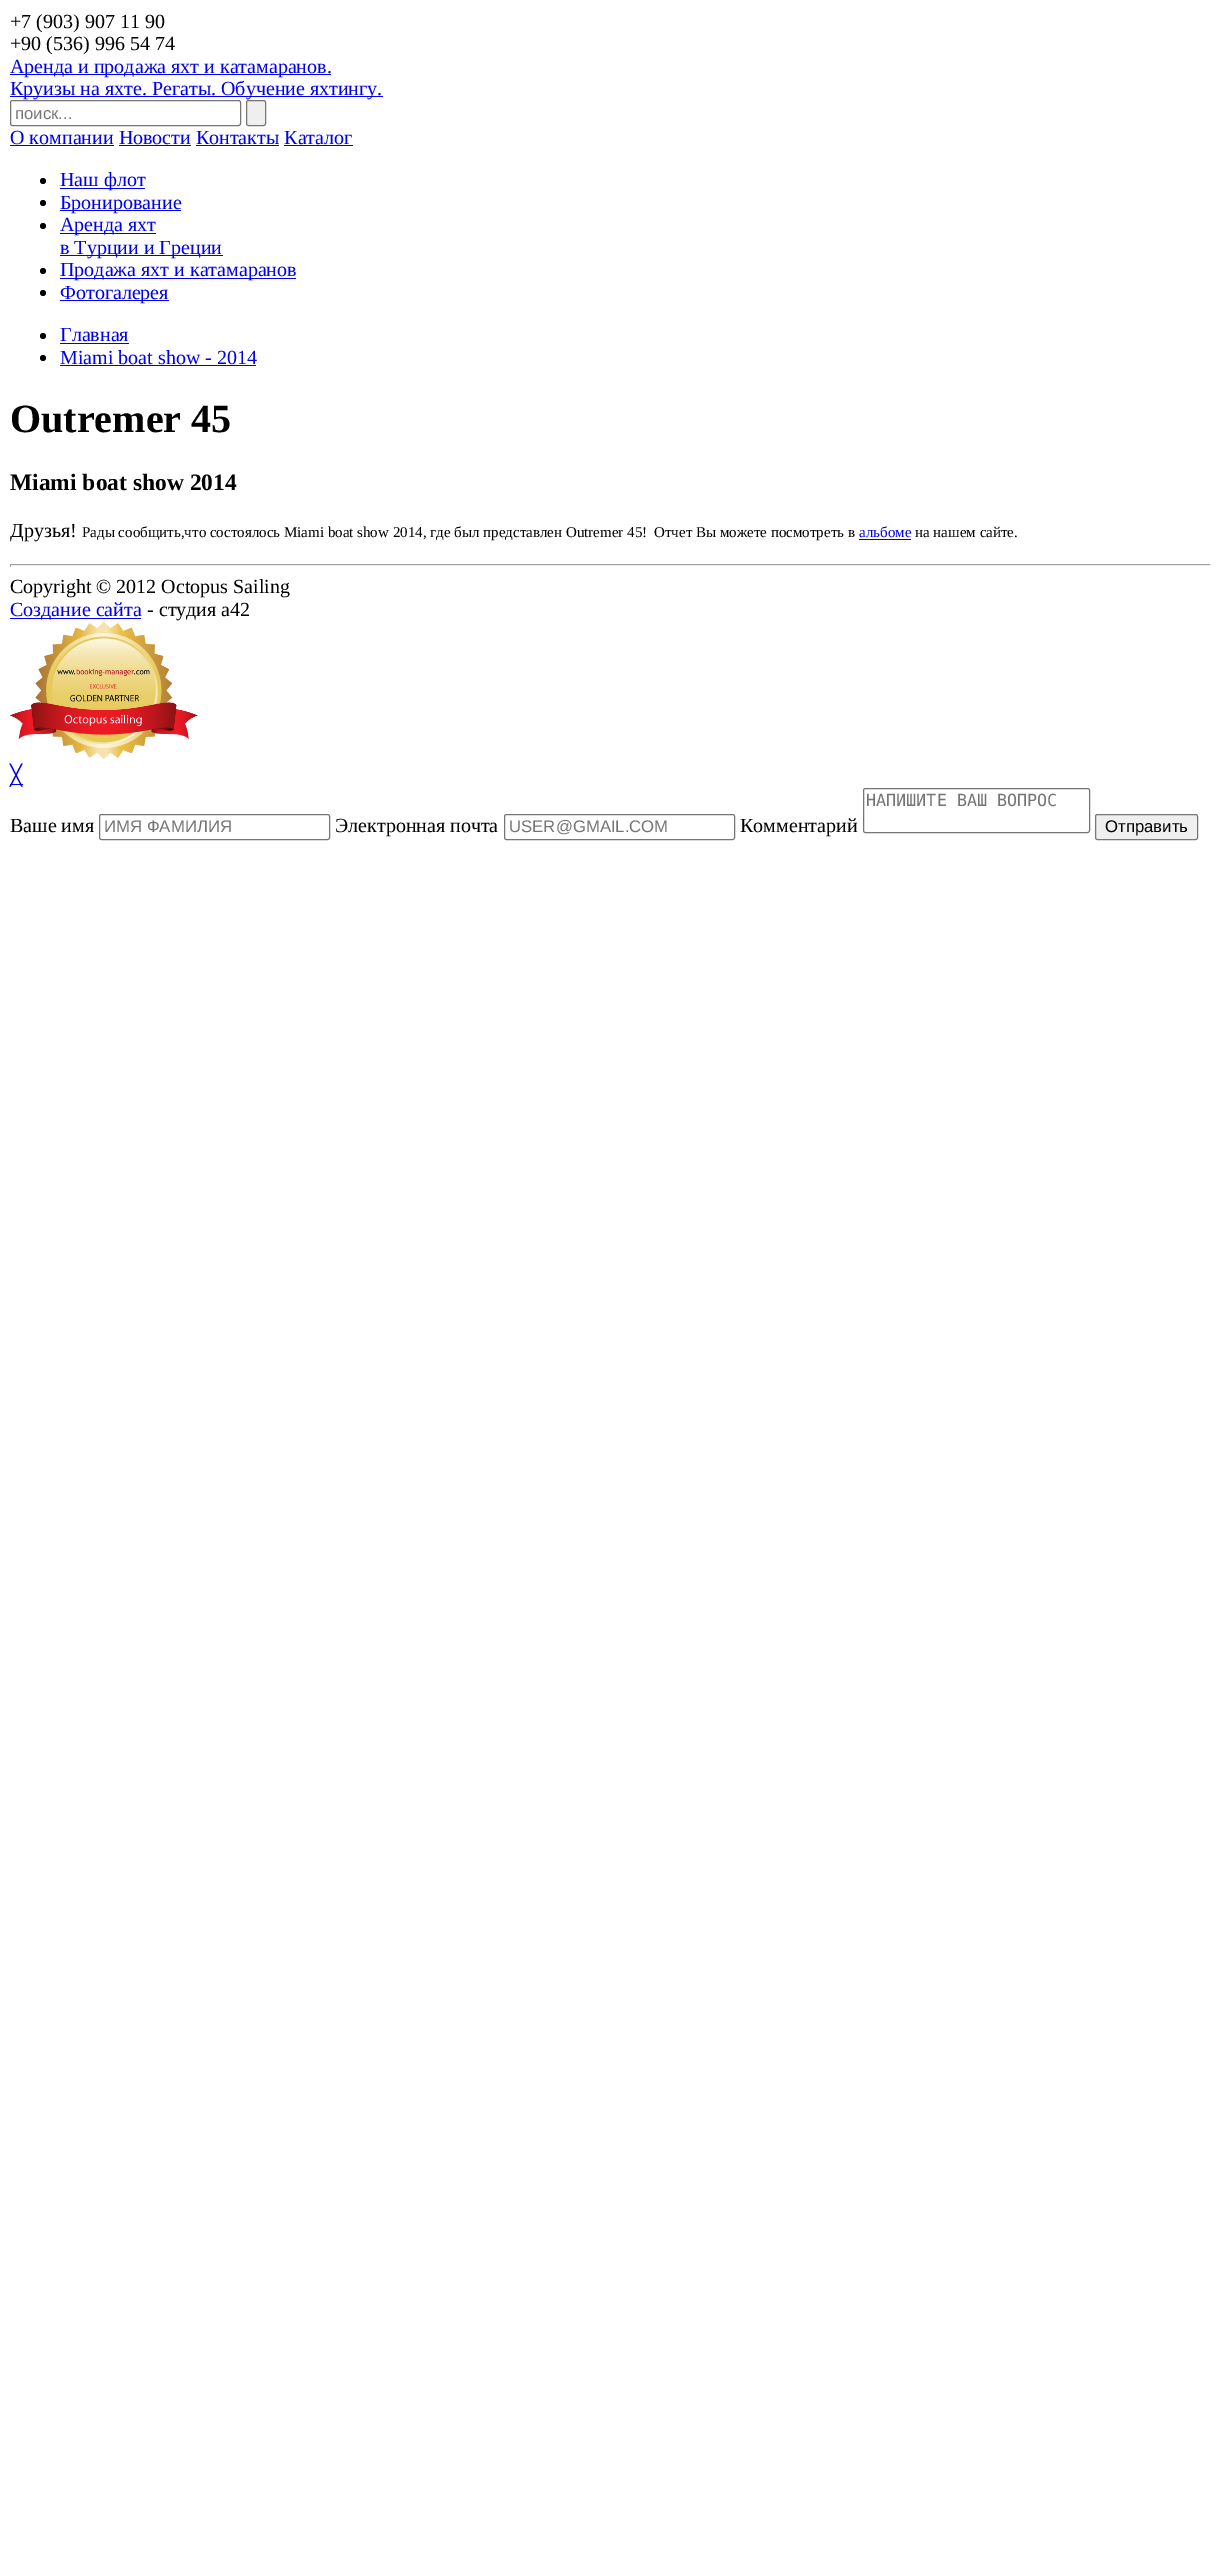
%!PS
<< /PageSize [1221 2571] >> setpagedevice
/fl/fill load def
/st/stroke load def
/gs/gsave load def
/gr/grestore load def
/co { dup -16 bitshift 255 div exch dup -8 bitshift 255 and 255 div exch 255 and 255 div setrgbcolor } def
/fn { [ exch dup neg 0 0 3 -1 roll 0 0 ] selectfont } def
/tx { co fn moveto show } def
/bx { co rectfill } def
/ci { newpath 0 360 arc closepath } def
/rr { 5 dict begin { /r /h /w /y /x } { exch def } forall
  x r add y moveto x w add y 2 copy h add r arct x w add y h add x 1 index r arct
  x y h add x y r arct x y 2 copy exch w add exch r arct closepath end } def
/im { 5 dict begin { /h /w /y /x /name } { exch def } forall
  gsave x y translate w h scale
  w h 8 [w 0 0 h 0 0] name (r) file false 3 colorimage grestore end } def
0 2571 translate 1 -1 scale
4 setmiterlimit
0 0 1221 2571 16#FFFFFF bx
10 74 321 1 16#0000EE bx
10 96 373 1 16#0000EE bx
16#767676 co
10.5 100.5 230 25 2 rr st
16#EFEFEF co
246.5 100.5 19 25 2 rr gs fl gr
16#767676 co
st
10 145 104 1 16#0000EE bx
119 145 72 1 16#0000EE bx
196 145 83 1 16#0000EE bx
284 145 69 1 16#0000EE bx
16#000000 co
43 181 3 ci fl
60 188 85 1 16#0000EE bx
16#000000 co
43 203 3 ci fl
60 210 121 1 16#0000EE bx
16#000000 co
43 226 3 ci fl
60 233 96 1 16#0000EE bx
60 255 163 1 16#0000EE bx
16#000000 co
43 271 3 ci fl
60 278 236 1 16#0000EE bx
16#000000 co
43 293 3 ci fl
60 300 109 1 16#0000EE bx
16#000000 co
43 336 3 ci fl
60 343 69 1 16#0000EE bx
16#000000 co
43 358 3 ci fl
60 365 196 1 16#0000EE bx
859 539 52 1 16#0000EE bx
10 564 1201 1 16#9F9F9F bx
1210 564 1 3 16#EEEEEE bx
10 565 1201 1 16#EEEEEE bx
10 564 1 3 16#9F9F9F bx
10 618 131 1 16#0000EE bx
(media/1.raw) 10 621 188 138 im
10 784 13 1 16#0000EE bx
16#767676 co
863.5 788.5 226 44 2 rr st
99.5 814.5 230 25 2 rr st
504.5 814.5 230 25 2 rr st
16#EFEFEF co
1095.5 814.5 102 25 2 rr gs fl gr
16#767676 co
st
(+7 \(903\) 907 11 90) 10 28 /LiberationSerif-Regular 20 16#000000 tx
(+90 \(536\) 996 54 74) 10 50 /LiberationSerif-Regular 20 16#000000 tx
(Аренда и продажа яхт и катамаранов.) 10 73 /LiberationSerif-Regular 20 16#0000EE tx
(Круизы на яхте. Регаты. Обучение яхтингу.) 10 95 /LiberationSerif-Regular 20 16#0000EE tx
(поиск...) 15 119 /LiberationSans-Regular 16.75 16#757575 tx
(О компании Новости Контакты Каталог) 10 144 /LiberationSerif-Regular 20 16#0000EE tx
(Наш флот) 60 186 /LiberationSerif-Regular 20 16#0000EE tx
(Бронирование) 60 209 /LiberationSerif-Regular 20 16#0000EE tx
(Аренда яхт) 60 231 /LiberationSerif-Regular 20 16#0000EE tx
(в Турции и Греции) 60 254 /LiberationSerif-Regular 20 16#0000EE tx
(Продажа яхт и катамаранов) 60 276 /LiberationSerif-Regular 20 16#0000EE tx
(Фотогалерея) 60 299 /LiberationSerif-Regular 20 16#0000EE tx
(Главная) 60 341 /LiberationSerif-Regular 20 16#0000EE tx
(Miami boat show - 2014) 60 364 /LiberationSerif-Regular 20 16#0000EE tx
(Outremer 45) 10 432 /LiberationSerif-Bold 40 16#000000 tx
(Miami boat show 2014) 10 490 /LiberationSerif-Bold 23.5 16#000000 tx
(Друзья!) 10 537 /LiberationSerif-Regular 20 16#000000 tx
(Рады сообщить,что состоялось Miami boat show 2014, где был представлен Outremer 45!) 82 537 /LiberationSerif-Regular 15 16#000000 tx
(Отчет Вы можете посмотреть в) 654 537 /LiberationSerif-Regular 15 16#000000 tx
(альбоме) 859 537 /LiberationSerif-Regular 15 16#0000EE tx
(на нашем сайте.) 915 537 /LiberationSerif-Regular 15 16#000000 tx
(Copyright © 2012 Octopus Sailing) 10 593 /LiberationSerif-Regular 20 16#000000 tx
(Создание сайта) 10 616 /LiberationSerif-Regular 20 16#0000EE tx
(- студия а42) 147 616 /LiberationSerif-Regular 20 16#000000 tx
(╳) 10 782 /DejaVuSans-Regular 20 16#0000EE tx
(НАПИШИТЕ ВАШ ВОПРОС) 866 806 /DejaVuSansMono-Regular 16.75 16#757575 tx
(Ваше имя) 10 832 /LiberationSerif-Regular 20 16#000000 tx
(ИМЯ ФАМИЛИЯ) 104 832 /LiberationSans-Regular 16.75 16#757575 tx
(Электронная почта) 335 832 /LiberationSerif-Regular 20 16#000000 tx
(USER@GMAIL.COM) 509 832 /LiberationSans-Regular 16.75 16#757575 tx
(Комментарий) 740 832 /LiberationSerif-Regular 20 16#000000 tx
(Отправить) 1105 832 /LiberationSans-Regular 16.75 16#000000 tx
showpage
